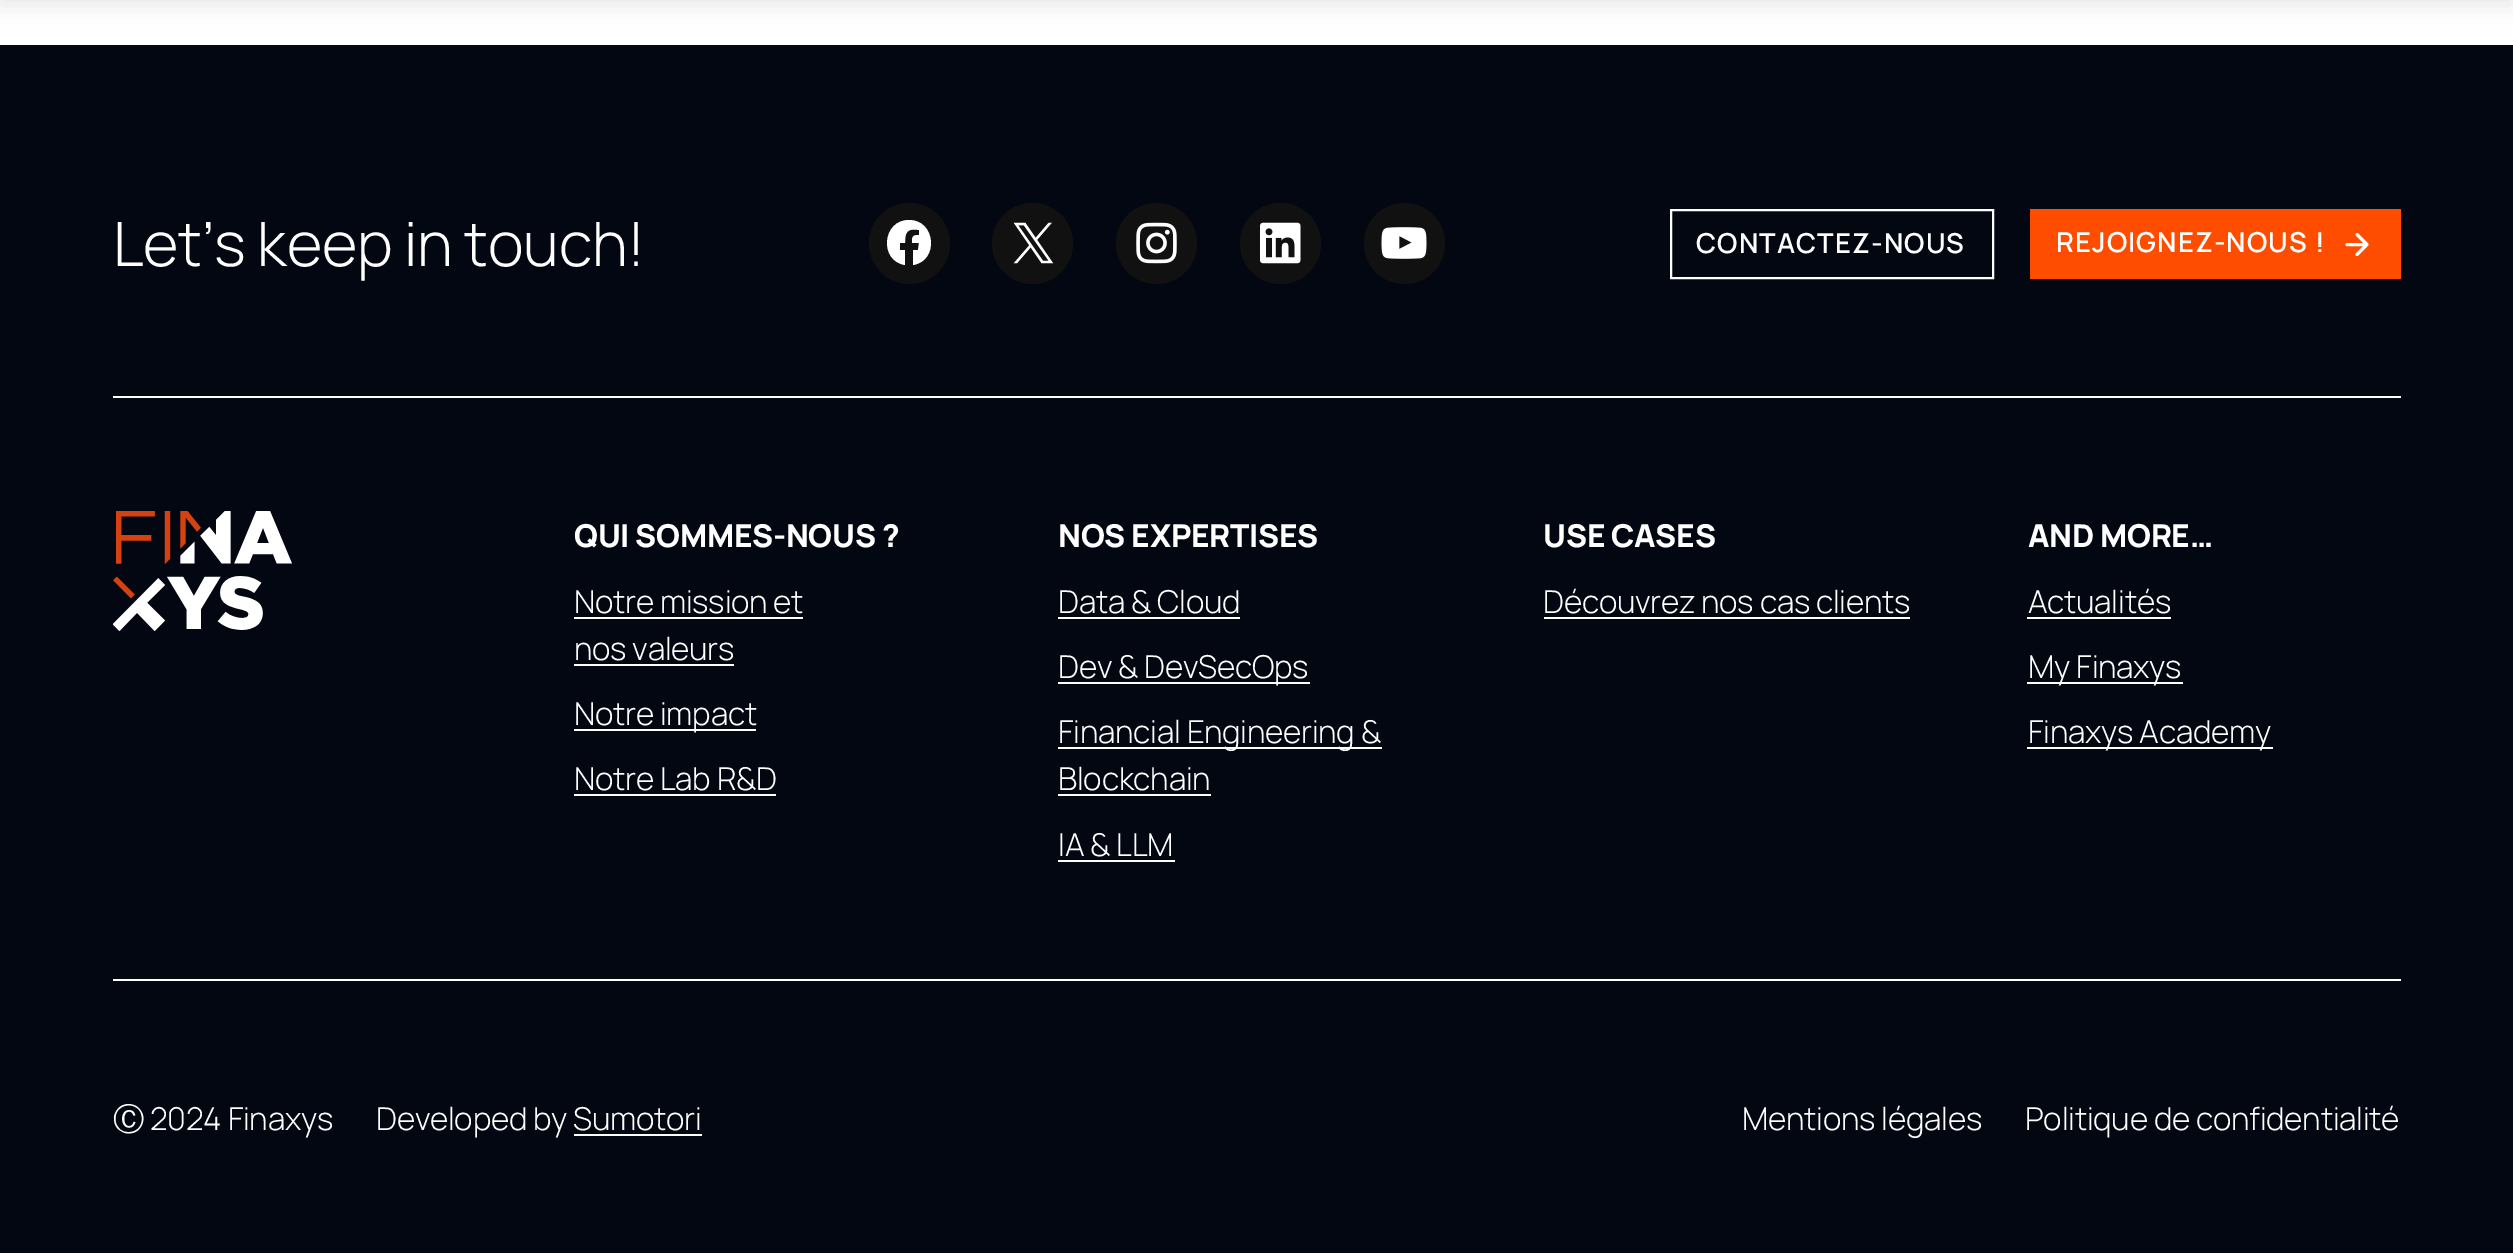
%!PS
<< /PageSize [2513 1253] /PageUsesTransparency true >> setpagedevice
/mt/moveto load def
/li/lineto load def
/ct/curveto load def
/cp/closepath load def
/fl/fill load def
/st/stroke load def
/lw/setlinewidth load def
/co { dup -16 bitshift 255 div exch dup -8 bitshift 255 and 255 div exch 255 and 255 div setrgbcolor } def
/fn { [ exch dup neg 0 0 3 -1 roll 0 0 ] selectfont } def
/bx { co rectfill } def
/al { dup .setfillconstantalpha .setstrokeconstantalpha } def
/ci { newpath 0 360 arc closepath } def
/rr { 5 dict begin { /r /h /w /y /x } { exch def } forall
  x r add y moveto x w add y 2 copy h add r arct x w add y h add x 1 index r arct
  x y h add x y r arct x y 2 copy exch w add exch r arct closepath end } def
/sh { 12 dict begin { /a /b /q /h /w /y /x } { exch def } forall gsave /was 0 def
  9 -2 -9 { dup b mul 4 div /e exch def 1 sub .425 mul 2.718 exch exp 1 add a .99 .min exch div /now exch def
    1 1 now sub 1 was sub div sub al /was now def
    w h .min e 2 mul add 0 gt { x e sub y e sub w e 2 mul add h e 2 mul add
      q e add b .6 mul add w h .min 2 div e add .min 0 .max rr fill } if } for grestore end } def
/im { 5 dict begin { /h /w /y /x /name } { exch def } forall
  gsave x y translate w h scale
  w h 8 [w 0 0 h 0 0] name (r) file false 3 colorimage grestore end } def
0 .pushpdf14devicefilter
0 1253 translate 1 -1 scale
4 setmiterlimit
0 0 2513 1253 16#FFFFFF bx
16#000000 co
0 -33 2513 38 0 11 .1 sh
0 45 2513 1208 16#030712 bx
16#111111 co
909.5 243.5 40.5 ci fl
16#FFFFFF co
909 220 mt 882 220 879 261 905 265 ct 905 250 li 900 250 li 900 243 li 905 243 li 905 232 907 228 919 230 ct 919 235 li 912 235 912 237 912 243 ct 919 243 li 918 250 li 913 250 li 913 265 li 939 261 936 220 909 220 ct cp fl
16#111111 co
1032.5 243.5 40.5 ci fl
(media/1.raw) 1013 222 41 42 im
1156.5 243.5 40.5 ci fl
(media/2.raw) 1136 222 41 42 im
1280.5 243.5 40.5 ci fl
(media/3.raw) 1260 222 41 42 im
1404.5 243.5 40.5 ci fl
(media/4.raw) 1381 227 46 32 im
16#FFFFFF co
2 lw
1671 210 322 68 rectstroke
2030 209 371 70 16#FF4D00 bx
16#FFFFFF co
2.9 lw
1 setlinecap
1 setlinejoin
2347 244.5 mt 2367 244.5 li 2357 234.5 mt 2367 244.5 li 2357 254.5 li st
113 396 2288 2 16#FFFFFF bx
113 979 2288 2 16#FFFFFF bx
(media/5.raw) 113 511 179 120 im
574 617 229 2 16#FFFFFF bx
574 664 160 2 16#FFFFFF bx
574 729 182 2 16#FFFFFF bx
574 794 202 2 16#FFFFFF bx
1058 617 182 2 16#FFFFFF bx
1058 682 252 2 16#FFFFFF bx
1058 747 324 2 16#FFFFFF bx
1058 794 153 2 16#FFFFFF bx
1058 860 117 2 16#FFFFFF bx
1544 617 366 2 16#FFFFFF bx
2027 617 144 2 16#FFFFFF bx
2027 682 156 2 16#FFFFFF bx
2027 747 246 2 16#FFFFFF bx
574 1134 128 2 16#FFFFFF bx
/Manrope-Light 61 fn
113 266 mt -.25 0 (Let’s keep in touch!) ashow
/Manrope-SemiBold 27.5 fn
1696 253 mt 1.1 0 (CONTACTEZ-NOUS) ashow
2056 252 mt 1.1 0 (REJOIGNEZ-NOUS !) ashow
/Manrope-ExtraBold 31.5 fn
574 547 mt -.25 0 (QUI SOMMES-NOUS ?) ashow
/Manrope-Light 31.5 fn
574 613 mt -.25 0 (Notre mission et) ashow
574 660 mt -.25 0 (nos valeurs) ashow
574 725 mt -.25 0 (Notre impact) ashow
574 790 mt -.25 0 (Notre Lab R&D) ashow
/Manrope-ExtraBold 31.5 fn
1058 547 mt -.25 0 (NOS EXPERTISES) ashow
/Manrope-Light 31.5 fn
1058 613 mt -.25 0 (Data & Cloud) ashow
1058 678 mt -.25 0 (Dev & DevSecOps) ashow
1058 743 mt -.25 0 (Financial Engineering &) ashow
1058 790 mt -.25 0 (Blockchain) ashow
1058 856 mt -.25 0 (IA & LLM) ashow
/Manrope-ExtraBold 31.5 fn
1543 547 mt -.25 0 (USE CASES) ashow
/Manrope-Light 31.5 fn
1543 613 mt -.25 0 (Découvrez nos cas clients) ashow
/Manrope-ExtraBold 31.5 fn
2028 547 mt -.25 0 (AND MORE…) ashow
/Manrope-Light 31.5 fn
2028 613 mt -.25 0 (Actualités) ashow
2028 678 mt -.25 0 (My Finaxys) ashow
2028 743 mt -.25 0 (Finaxys Academy) ashow
/WenQuanYiZenHei-Medium 31.5 fn
113 1130 mt -.25 0 (Ⓒ) ashow
/Manrope-Light 31.5 fn
150 1130 mt -.25 0 (2024 Finaxys) ashow
376 1130 mt -.25 0 (Developed by Sumotori) ashow
1742 1130 mt -.25 0 (Mentions légales) ashow
2025 1130 mt -.25 0 (Politique de confidentialité) ashow
.poppdf14devicefilter showpage
